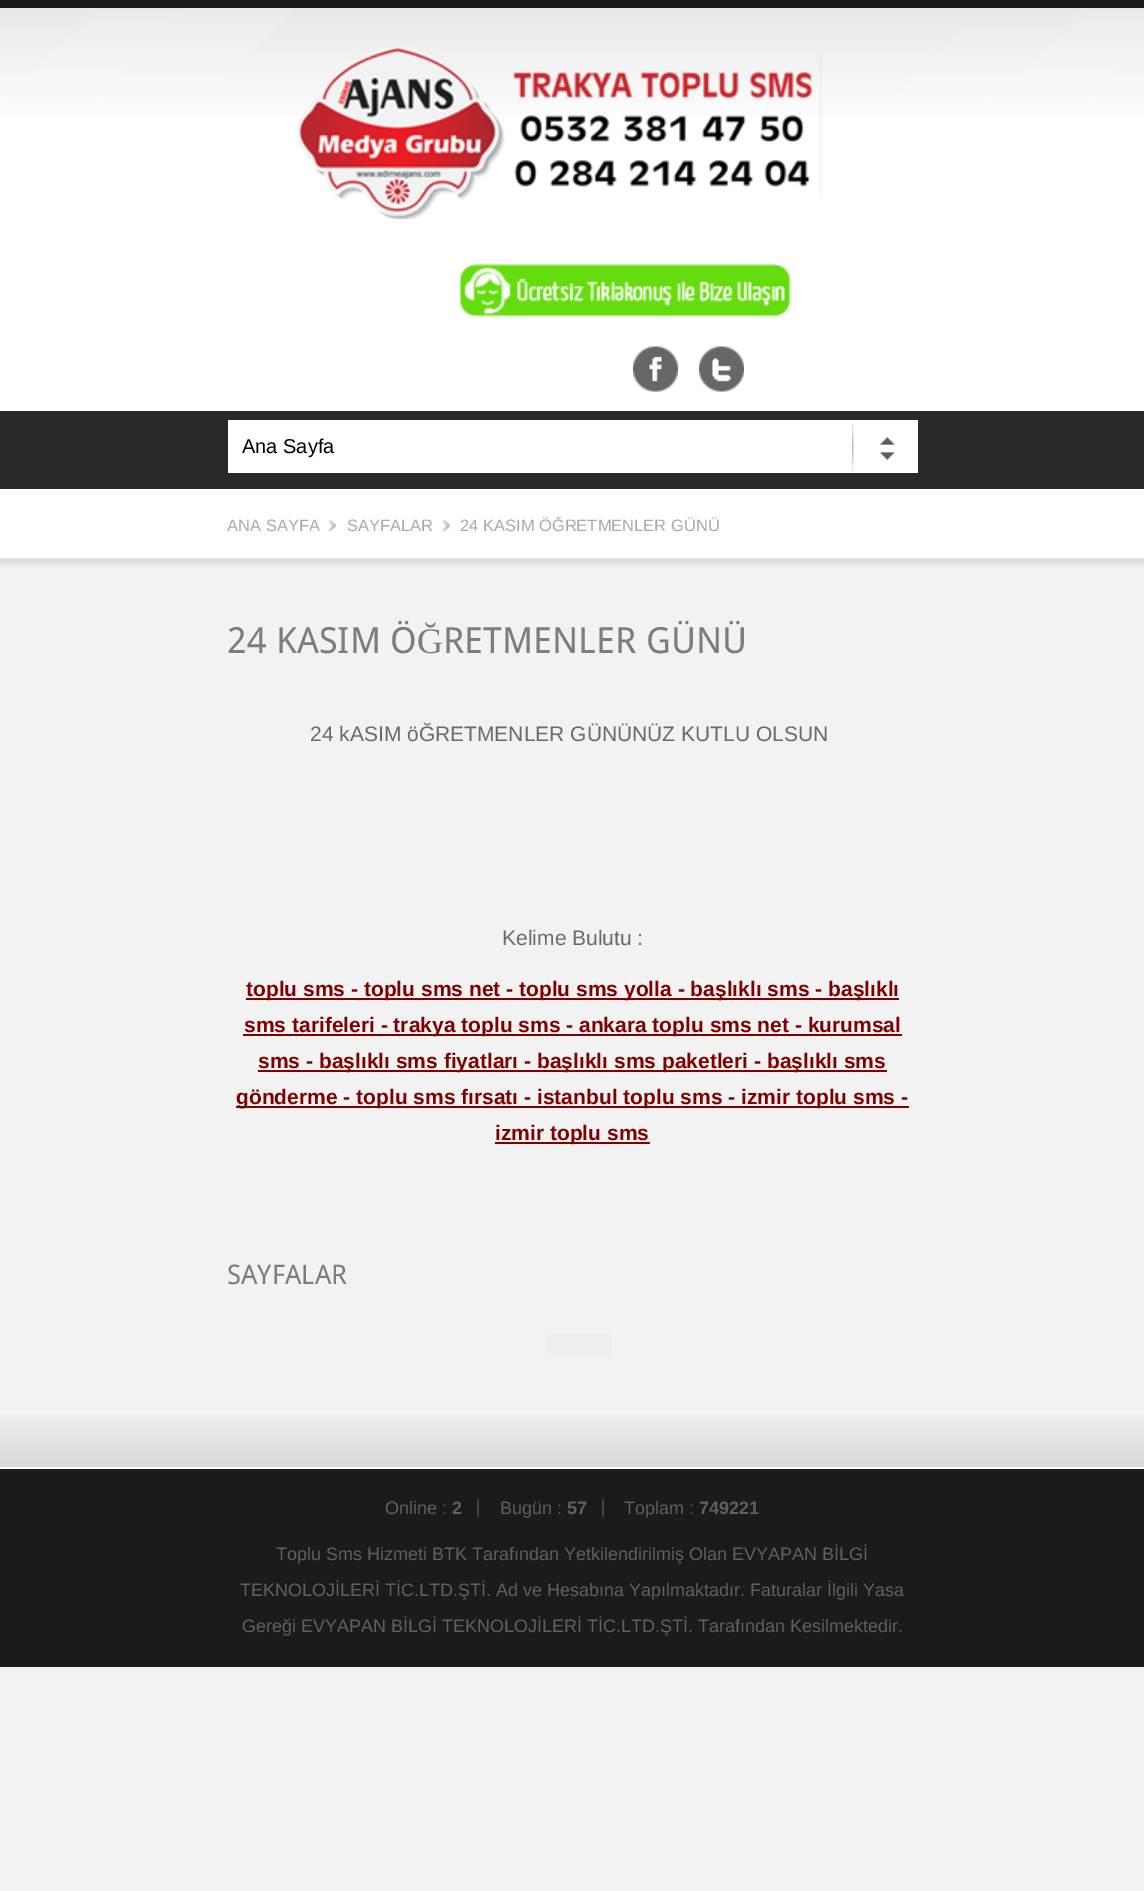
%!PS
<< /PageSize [1144 1891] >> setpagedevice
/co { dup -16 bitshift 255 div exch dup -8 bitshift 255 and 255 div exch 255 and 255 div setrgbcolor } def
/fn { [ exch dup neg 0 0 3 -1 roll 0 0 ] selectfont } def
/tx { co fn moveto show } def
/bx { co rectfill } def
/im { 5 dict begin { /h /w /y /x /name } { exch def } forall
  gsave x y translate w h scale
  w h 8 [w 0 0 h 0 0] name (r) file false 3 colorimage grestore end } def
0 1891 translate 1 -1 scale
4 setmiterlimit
0 0 1144 1891 16#F2F2F2 bx
0 8 1144 403 16#FFFFFF bx
(media/1.raw) 0 8 1144 108 im
0 0 1144 8 16#1B1B1B bx
(media/2.raw) 297 46 525 173 im
(media/3.raw) 459 264 332 53 im
(media/4.raw) 633 346 45 46 im
(media/5.raw) 699 346 45 46 im
0 411 1144 78 16#292929 bx
228 420 690 53 16#FFFFFF bx
(media/6.raw) 852 422 43 51 im
(media/7.raw) 0 558 1144 9 im
0 489 1144 69 16#FFFFFF bx
(media/8.raw) 328 520 8 11 im
(media/9.raw) 442 520 8 11 im
(media/10.raw) 0 1415 1144 52 im
0 1467 1144 2 16#FFFFFF bx
246 998 653 2 16#800000 bx
243 1034 659 2 16#800000 bx
258 1070 629 2 16#800000 bx
236 1106 673 2 16#800000 bx
495 1142 155 2 16#800000 bx
(media/11.raw) 546 1333 66 24 im
0 1469 1144 198 16#1B1B1B bx
477 1499 2 18 16#444444 bx
602 1499 2 18 16#444444 bx
(Ana Sayfa) 242 453 /LiberationSans-Regular 20 16#000000 tx
(ANA SAYFA) 227 531 /LiberationSans-Regular 16.5 16#AAAAAA tx
(SAYFALAR) 347 531 /LiberationSans-Regular 16.5 16#AAAAAA tx
(24 KASIM ÖĞRETMENLER GÜNÜ) 460 531 /LiberationSans-Regular 16.5 16#AAAAAA tx
(24 KASIM Ö) 227 653 /DroidSans-Regular 36 16#7D7D7D tx
(Ğ) 417 653 /LiberationSerif-Regular 36 16#7D7D7D tx
(RETMENLER GÜNÜ) 443 653 /DroidSans-Regular 36 16#7D7D7D tx
(24 kASIM öĞRETMENLER GÜNÜNÜZ KUTLU OLSUN) 310 741 /LiberationSans-Regular 21 16#6A6A6A tx
(Kelime Bulutu :) 502 945 /LiberationSans-Regular 21 16#6A6A6A tx
(toplu sms - toplu sms net - toplu sms yolla - başlıklı sms - başlıklı) 246 996 /LiberationSans-Bold 21 16#800000 tx
(sms tarifeleri - trakya toplu sms - ankara toplu sms net - kurumsal) 244 1032 /LiberationSans-Bold 21 16#800000 tx
(sms - başlıklı sms fiyatları - başlıklı sms paketleri - başlıklı sms) 258 1068 /LiberationSans-Bold 21 16#800000 tx
(gönderme - toplu sms fırsatı - istanbul toplu sms - izmir toplu sms -) 236 1104 /LiberationSans-Bold 21 16#800000 tx
(izmir toplu sms) 495 1140 /LiberationSans-Bold 21 16#800000 tx
(SAYFALAR) 227 1284 /DroidSans-Regular 27 16#7D7D7D tx
(Online :) 385 1514 /LiberationSans-Regular 18 16#606060 tx
(2) 452 1514 /LiberationSans-Bold 18 16#606060 tx
(Bugün :) 500 1514 /LiberationSans-Regular 18 16#606060 tx
(57) 567 1514 /LiberationSans-Bold 18 16#606060 tx
(Toplam :) 624 1514 /LiberationSans-Regular 18 16#606060 tx
(749221) 699 1514 /LiberationSans-Bold 18 16#606060 tx
(Toplu Sms Hizmeti BTK Tarafından Yetkilendirilmiş Olan EVYAPAN BİLGİ) 276 1560 /LiberationSans-Regular 18 16#606060 tx
(TEKNOLOJİLERİ TİC.LTD.ŞTİ. Ad ve Hesabına Yapılmaktadır. Faturalar İlgili Yasa) 240 1596 /LiberationSans-Regular 18 16#606060 tx
(Gereği EVYAPAN BİLGİ TEKNOLOJİLERİ TİC.LTD.ŞTİ. Tarafından Kesilmektedir.) 242 1632 /LiberationSans-Regular 18 16#606060 tx
showpage
